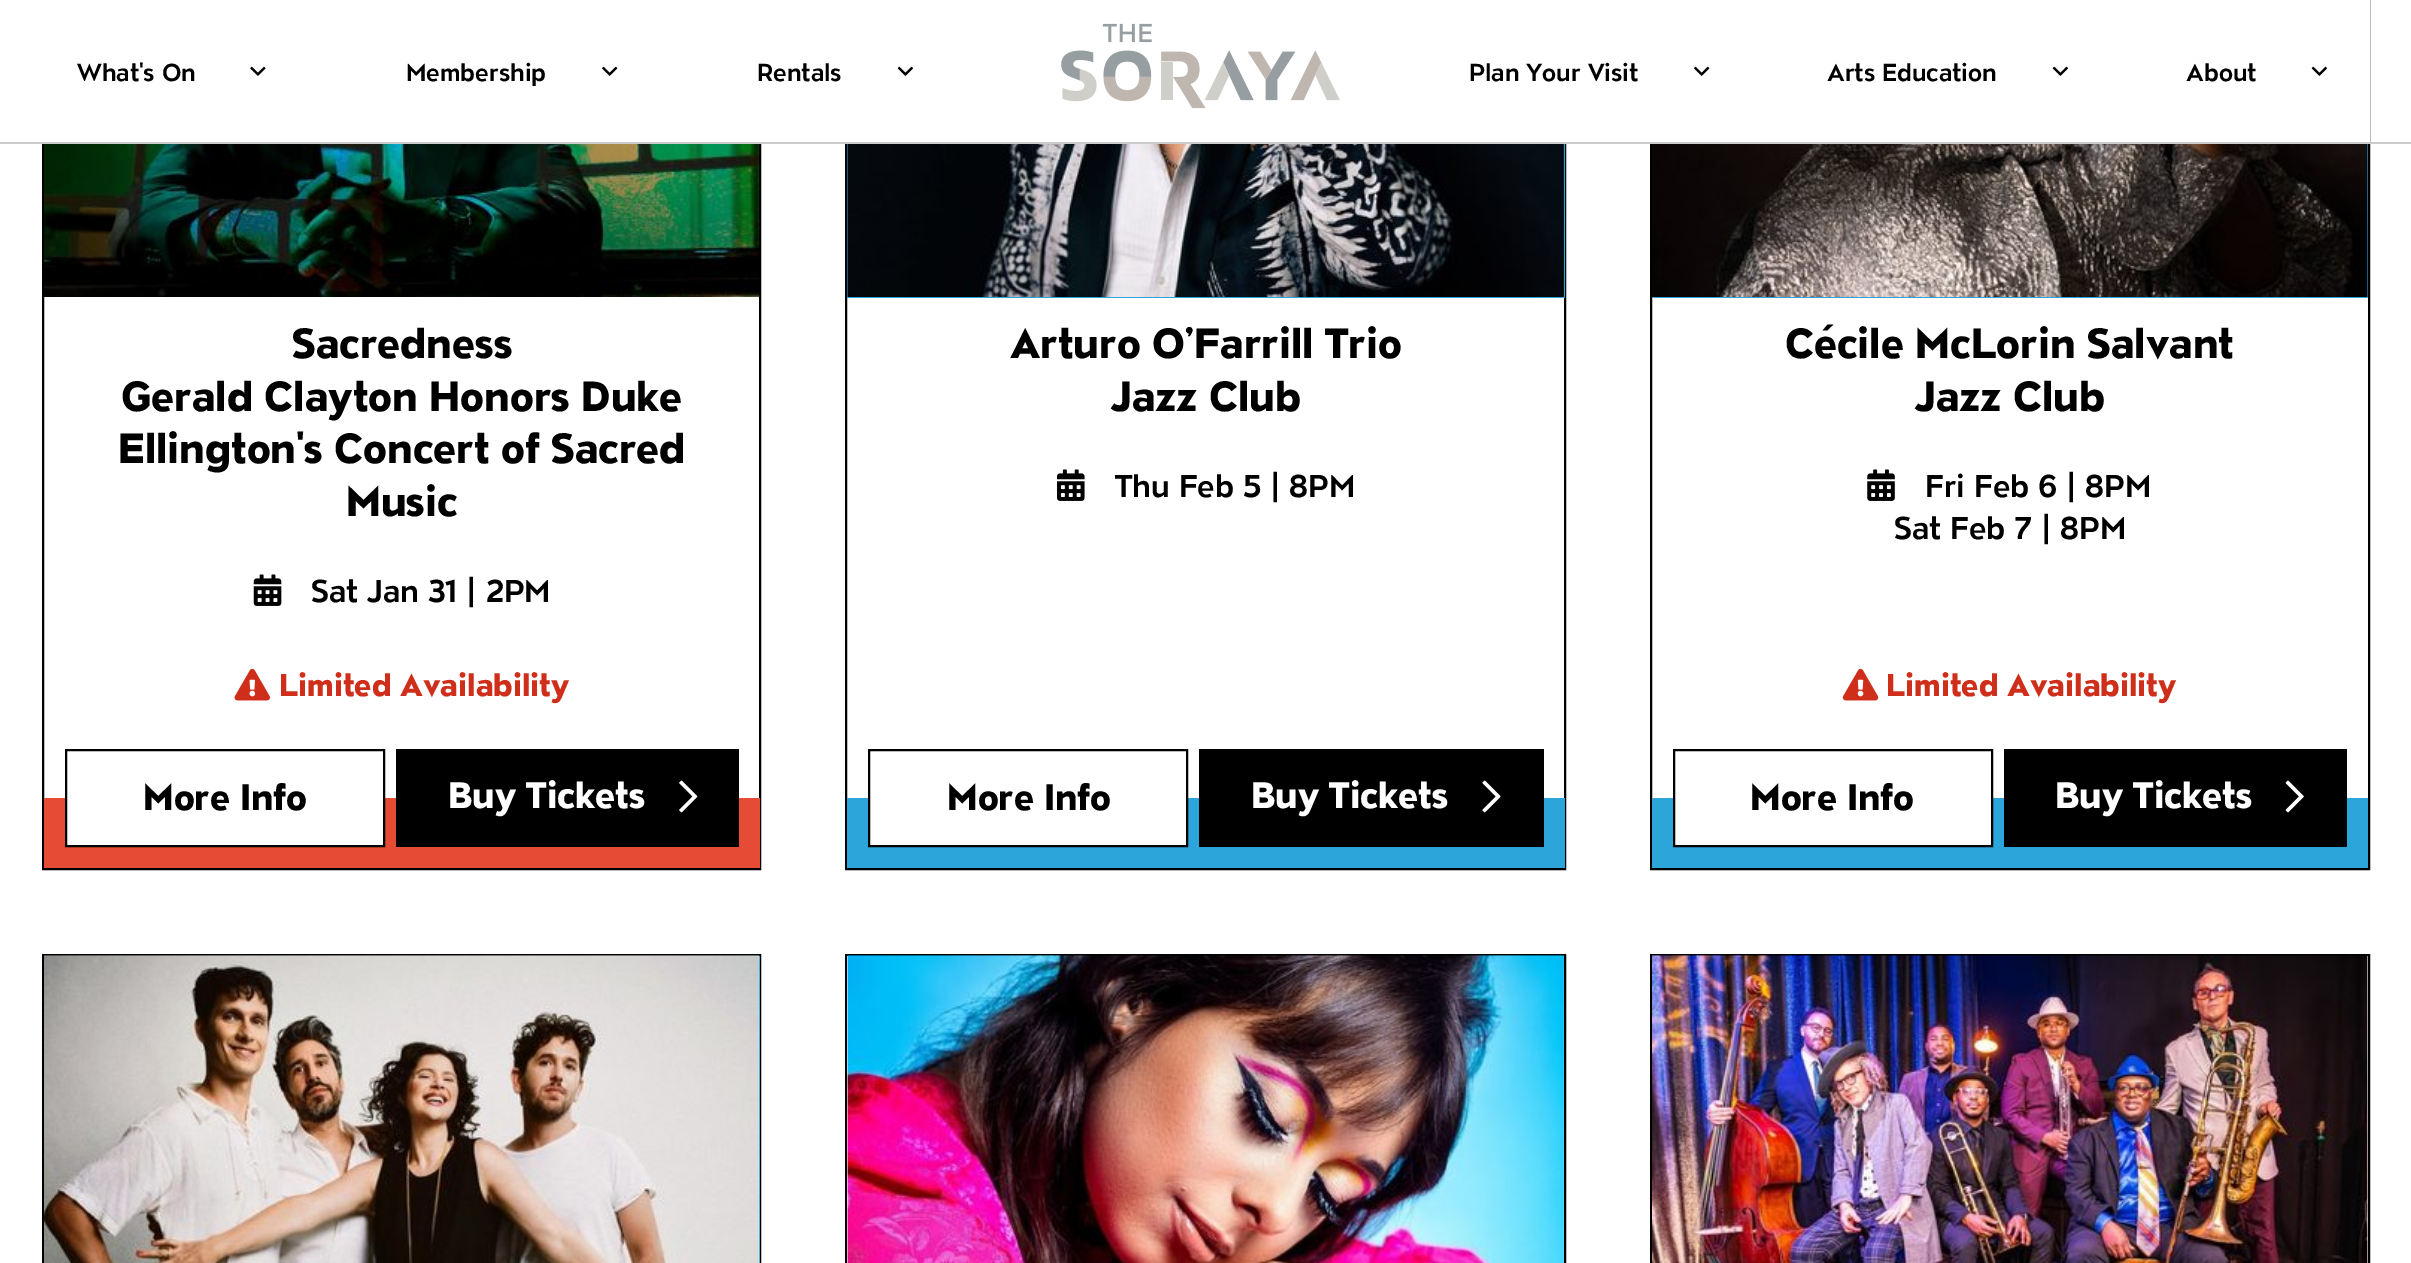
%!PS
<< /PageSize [2411 1263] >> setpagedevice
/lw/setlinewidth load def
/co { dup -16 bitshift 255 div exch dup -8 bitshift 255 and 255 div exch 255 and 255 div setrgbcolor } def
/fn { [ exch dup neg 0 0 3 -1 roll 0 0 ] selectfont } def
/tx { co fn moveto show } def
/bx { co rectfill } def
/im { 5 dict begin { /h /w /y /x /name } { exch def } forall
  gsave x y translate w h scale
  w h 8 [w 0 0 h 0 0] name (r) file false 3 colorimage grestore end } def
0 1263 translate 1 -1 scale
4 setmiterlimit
0 0 2411 1263 16#FFFFFF bx
16#000000 co
2 lw
43 -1 717 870 rectstroke
846 -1 719 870 rectstroke
1651 -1 718 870 rectstroke
42 0 2328 142 16#FFFFFF bx
0 142 2411 2 16#CCCCCC bx
(media/1.raw) 250 66 16 10 im
(media/2.raw) 602 66 16 10 im
(media/3.raw) 897 66 16 10 im
(media/4.raw) 1061 23 279 86 im
(media/2.raw) 1694 66 16 10 im
(media/3.raw) 2052 66 16 10 im
(media/3.raw) 2311 66 16 10 im
(media/5.raw) 44 144 716 153 im
(media/6.raw) 253 574 29 32 im
(media/7.raw) 234 668 36 33 im
44 798 716 70 16#E64B36 bx
67 798 316 47 16#FFFFFF bx
16#000000 co
66 750 318 96 rectstroke
396 749 343 98 16#000000 bx
(media/8.raw) 679 780 19 33 im
847 144 718 154 16#2CA5DA bx
(media/9.raw) 847 144 717 153 im
(media/10.raw) 1057 469 28 32 im
847 798 718 70 16#2CA5DA bx
870 798 316 47 16#FFFFFF bx
16#000000 co
869 750 318 96 rectstroke
1199 749 345 98 16#000000 bx
(media/11.raw) 1482 780 19 33 im
1652 144 716 154 16#2CA5DA bx
(media/12.raw) 1652 144 716 153 im
(media/13.raw) 1867 469 28 32 im
(media/14.raw) 1842 668 37 33 im
1652 798 716 70 16#2CA5DA bx
1675 798 316 47 16#FFFFFF bx
16#000000 co
1674 750 318 96 rectstroke
2004 749 343 98 16#000000 bx
(media/15.raw) 2285 780 19 33 im
43 955 717 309 rectstroke
759 956 1 307 16#2CA5DA bx
(media/16.raw) 44 955 716 308 im
16#000000 co
846 955 719 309 rectstroke
(media/17.raw) 847 955 717 308 im
1651 955 718 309 rectstroke
(media/18.raw) 1652 955 716 308 im
(What's On) 77 81 /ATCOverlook-Bold 24.5 16#000000 tx
(Membership) 406 81 /ATCOverlook-Bold 24.5 16#000000 tx
(Rentals) 757 81 /ATCOverlook-Bold 24.5 16#000000 tx
(Plan Your Visit) 1469 81 /ATCOverlook-Bold 24.5 16#000000 tx
(Arts Education) 1827 81 /ATCOverlook-Bold 24.5 16#000000 tx
(About) 2186 81 /ATCOverlook-Bold 24.5 16#000000 tx
(Sacredness) 292 358 /ATCOverlook-Black 42 16#000000 tx
(Gerald Clayton Honors Duke) 121 411 /ATCOverlook-Black 42 16#000000 tx
(Ellington's Concert of Sacred) 118 463 /ATCOverlook-Black 42 16#000000 tx
(Music) 346 516 /ATCOverlook-Black 42 16#000000 tx
(Sat Jan 31 | 2PM) 311 602 /ATCOverlook-Bold 31.5 16#000000 tx
(Limited Availability) 279 696 /ATCOverlook-Black 31.5 16#CF2F1A tx
(More Info) 143 810 /ATCOverlook-Black 36.75 16#000000 tx
(Buy Tickets) 448 808 /ATCOverlook-Black 36.75 16#FFFFFF tx
(Arturo O’Farrill Trio) 1010 358 /ATCOverlook-Black 42 16#000000 tx
(Jazz Club) 1111 411 /ATCOverlook-Black 42 16#000000 tx
(Thu Feb 5 | 8PM) 1115 497 /ATCOverlook-Bold 31.5 16#000000 tx
(More Info) 947 810 /ATCOverlook-Black 36.75 16#000000 tx
(Buy Tickets) 1251 808 /ATCOverlook-Black 36.75 16#FFFFFF tx
(Cécile McLorin Salvant) 1785 358 /ATCOverlook-Black 42 16#000000 tx
(Jazz Club) 1915 411 /ATCOverlook-Black 42 16#000000 tx
(Fri Feb 6 | 8PM) 1925 497 /ATCOverlook-Bold 31.5 16#000000 tx
(Sat Feb 7 | 8PM) 1894 539 /ATCOverlook-Bold 31.5 16#000000 tx
(Limited Availability) 1886 696 /ATCOverlook-Black 31.5 16#CF2F1A tx
(More Info) 1750 810 /ATCOverlook-Black 36.75 16#000000 tx
(Buy Tickets) 2055 808 /ATCOverlook-Black 36.75 16#FFFFFF tx
showpage
